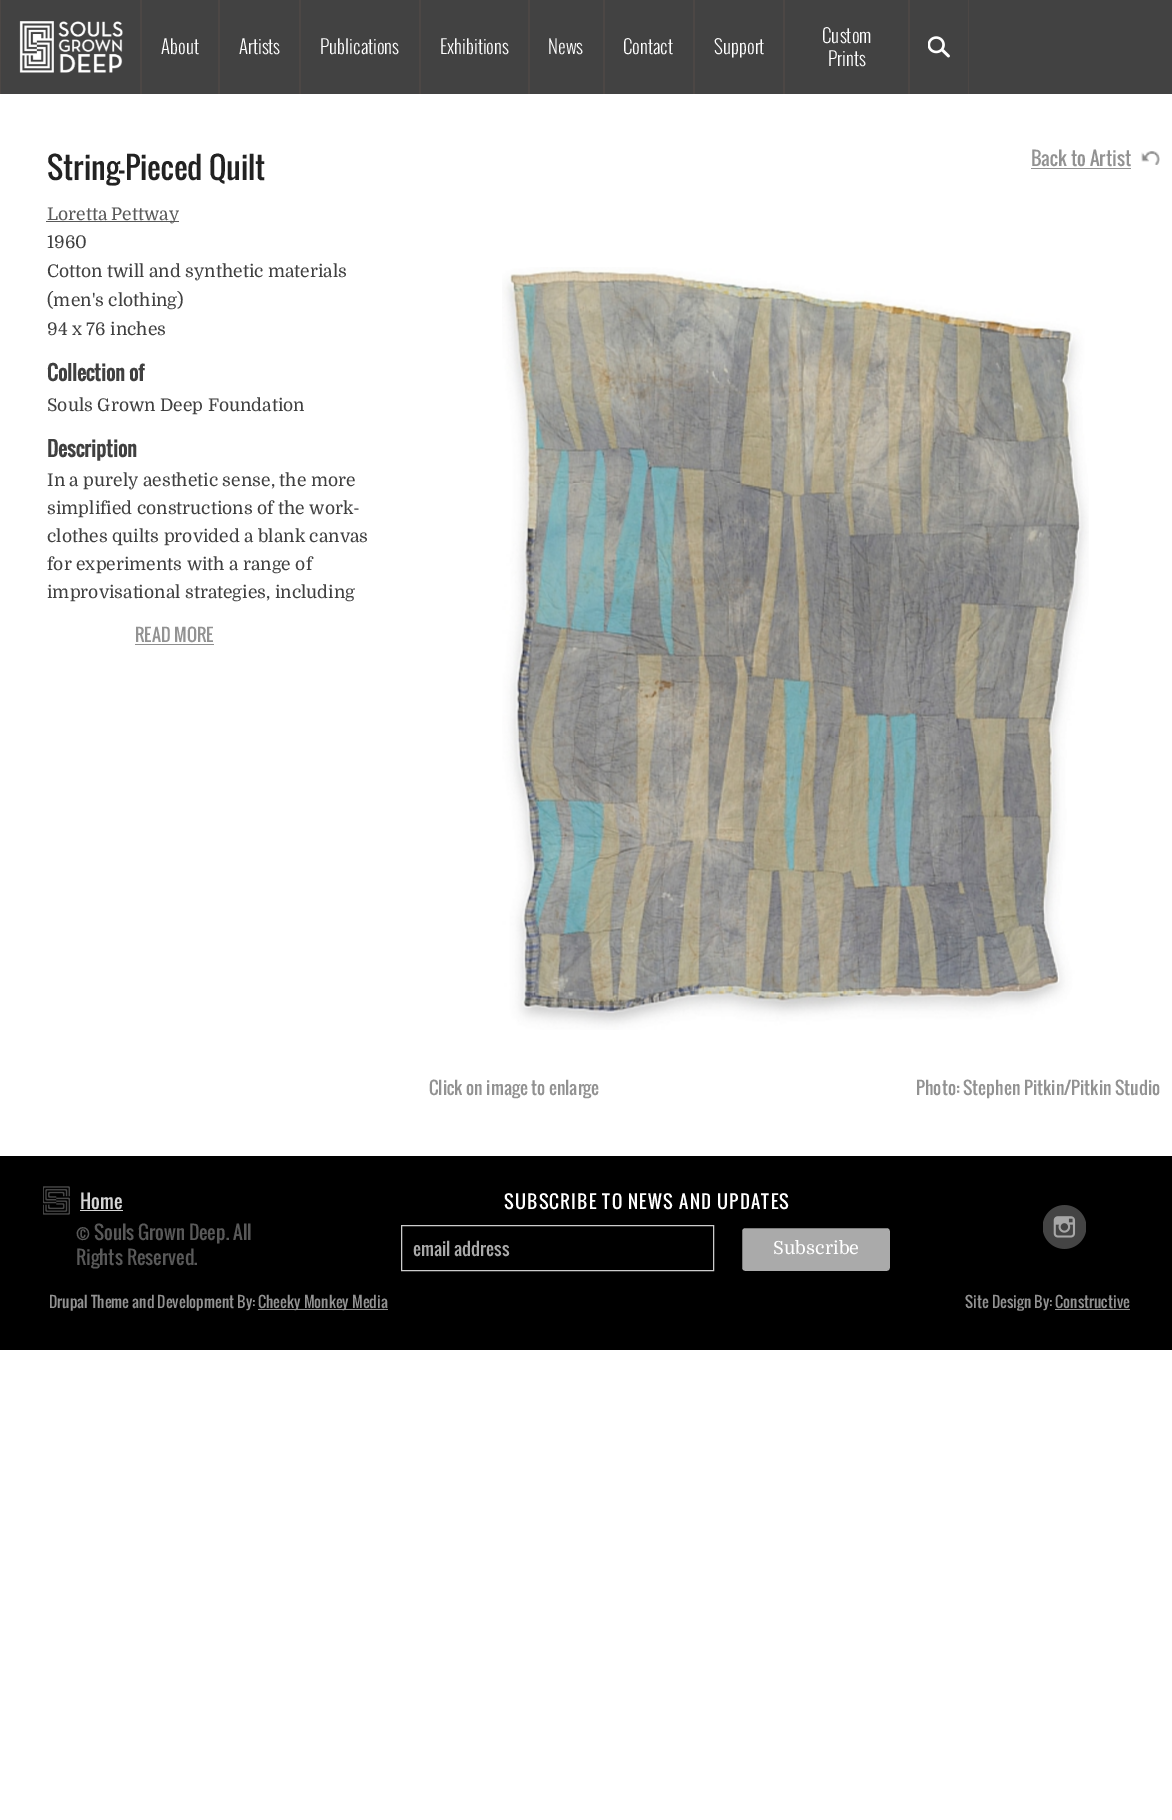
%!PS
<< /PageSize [1172 1820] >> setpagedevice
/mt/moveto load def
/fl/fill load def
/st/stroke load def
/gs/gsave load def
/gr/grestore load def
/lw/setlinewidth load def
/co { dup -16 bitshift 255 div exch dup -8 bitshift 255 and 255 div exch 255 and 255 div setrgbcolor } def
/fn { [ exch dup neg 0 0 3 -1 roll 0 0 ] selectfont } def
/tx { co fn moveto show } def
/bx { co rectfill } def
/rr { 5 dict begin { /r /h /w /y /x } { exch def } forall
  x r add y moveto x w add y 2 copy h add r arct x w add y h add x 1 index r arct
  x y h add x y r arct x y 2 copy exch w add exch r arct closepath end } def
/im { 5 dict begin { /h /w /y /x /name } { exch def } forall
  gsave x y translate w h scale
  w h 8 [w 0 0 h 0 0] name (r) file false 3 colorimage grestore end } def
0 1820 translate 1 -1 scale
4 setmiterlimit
0 0 1172 1820 16#FFFFFF bx
1 0 1171 94 16#424242 bx
140 0 2 94 16#4C4745 bx
0 0 1 94 16#4C4745 bx
(media/1.raw) 19 21 104 52 im
218 0 2 94 16#4C4745 bx
419 0 2 94 16#4C4745 bx
299 0 2 94 16#4C4745 bx
603 0 2 94 16#4C4745 bx
528 0 2 94 16#4C4745 bx
693 0 2 94 16#4C4745 bx
908 0 2 94 16#4C4745 bx
783 0 2 94 16#4C4745 bx
968 0 1 94 16#4C4745 bx
(media/2.raw) 928 36 22 22 im
(media/3.raw) 1141 151 19 14 im
1031 168 100 1 16#929292 bx
46 221 133 1 16#595959 bx
135 644 79 1 16#8E8E8E bx
(media/4.raw) 502 267 587 763 im
0 1156 1172 194 16#000000 bx
(media/5.raw) 43 1186 27 29 im
80 1210 43 1 16#D5D5D5 bx
16#CCCCCC co
401.5 1225.5 312 45 rectstroke
16#AAAAAA co
740.5 1226.5 151 46 4.5 rr gs fl gr
16#000000 co
3 lw
st
(media/6.raw) 1043 1205 43 44 im
258 1309 130 1 16#929292 bx
1055 1309 75 1 16#929292 bx
(About) 161 54 /Oswald-Light 18.75 16#FFFFFF tx
(Artists) 239 54 /Oswald-Light 18.75 16#FFFFFF tx
(Publications) 320 54 /Oswald-Light 18.75 16#FFFFFF tx
(Exhibitions) 440 54 /Oswald-Light 18.75 16#FFFFFF tx
(News) 548 54 /Oswald-Light 18.75 16#FFFFFF tx
(Contact) 623 54 /Oswald-Light 18.75 16#FFFFFF tx
(Support) 714 54 /Oswald-Light 18.75 16#FFFFFF tx
(Custom) 822 43 /Oswald-Light 18.75 16#FFFFFF tx
(Prints) 828 66 /Oswald-Light 18.75 16#FFFFFF tx
(String-Pieced Quilt) 47 180 /Oswald-Regular 30 16#222222 tx
(Back to Artist) 1031 166 /Oswald-Regular 18.75 16#929292 tx
(Loretta Pettway) 47 220 /Domine-Regular 17.5 16#595959 tx
(1960) 47 248 /Domine-Regular 17.5 16#404040 tx
(Cotton twill and synthetic materials) 47 277 /Domine-Regular 17.5 16#404040 tx
(\(men's clothing\)) 47 306 /Domine-Regular 17.5 16#404040 tx
(94 x 76 inches) 47 335 /Domine-Regular 17.5 16#404040 tx
(Collection of) 47 381 /Oswald-Bold 20 16#404040 tx
(Souls Grown Deep Foundation) 47 411 /Domine-Regular 17.5 16#404040 tx
(Description) 47 457 /Oswald-Bold 20 16#404040 tx
(In a purely aesthetic sense, the more) 47 486 /Domine-Regular 17.5 16#404040 tx
(simplified constructions of the work-) 47 514 /Domine-Regular 17.5 16#404040 tx
(clothes quilts provided a blank canvas) 47 542 /Domine-Regular 17.5 16#404040 tx
(for experiments with a range of) 47 570 /Domine-Regular 17.5 16#404040 tx
(improvisational strategies, including) 47 598 /Domine-Regular 17.5 16#404040 tx
(READ MORE) 135 642 /Oswald-Regular 17.5 16#929292 tx
(Click on image to enlarge) 429 1095 /Oswald-Regular 17.5 16#929292 tx
(Photo: Stephen Pitkin/Pitkin Studio) 916 1095 /Oswald-Regular 17.5 16#929292 tx
(Home) 80 1209 /Oswald-Regular 18.75 16#D5D5D5 tx
(© Souls Grown Deep. All) 76 1240 /Oswald-Regular 18.75 16#595959 tx
(Rights Reserved.) 76 1265 /Oswald-Regular 18.75 16#595959 tx
/Oswald-Regular 18 fn
16#FFFFFF co
504 1209 mt 1.25 0 (SUBSCRIBE TO NEWS AND UPDATES) ashow
(email address) 413 1256 /Oswald-Regular 17.5 16#AAAAAA tx
(Subscribe) 773 1254 /Domine-Regular 18 16#FFFFFF tx
(Drupal Theme and Development By:) 49 1308 /Oswald-Regular 15 16#929292 tx
(Cheeky Monkey Media) 258 1308 /Oswald-Regular 15 16#929292 tx
(Site Design By: Constructive) 965 1308 /Oswald-Regular 15 16#929292 tx
showpage
